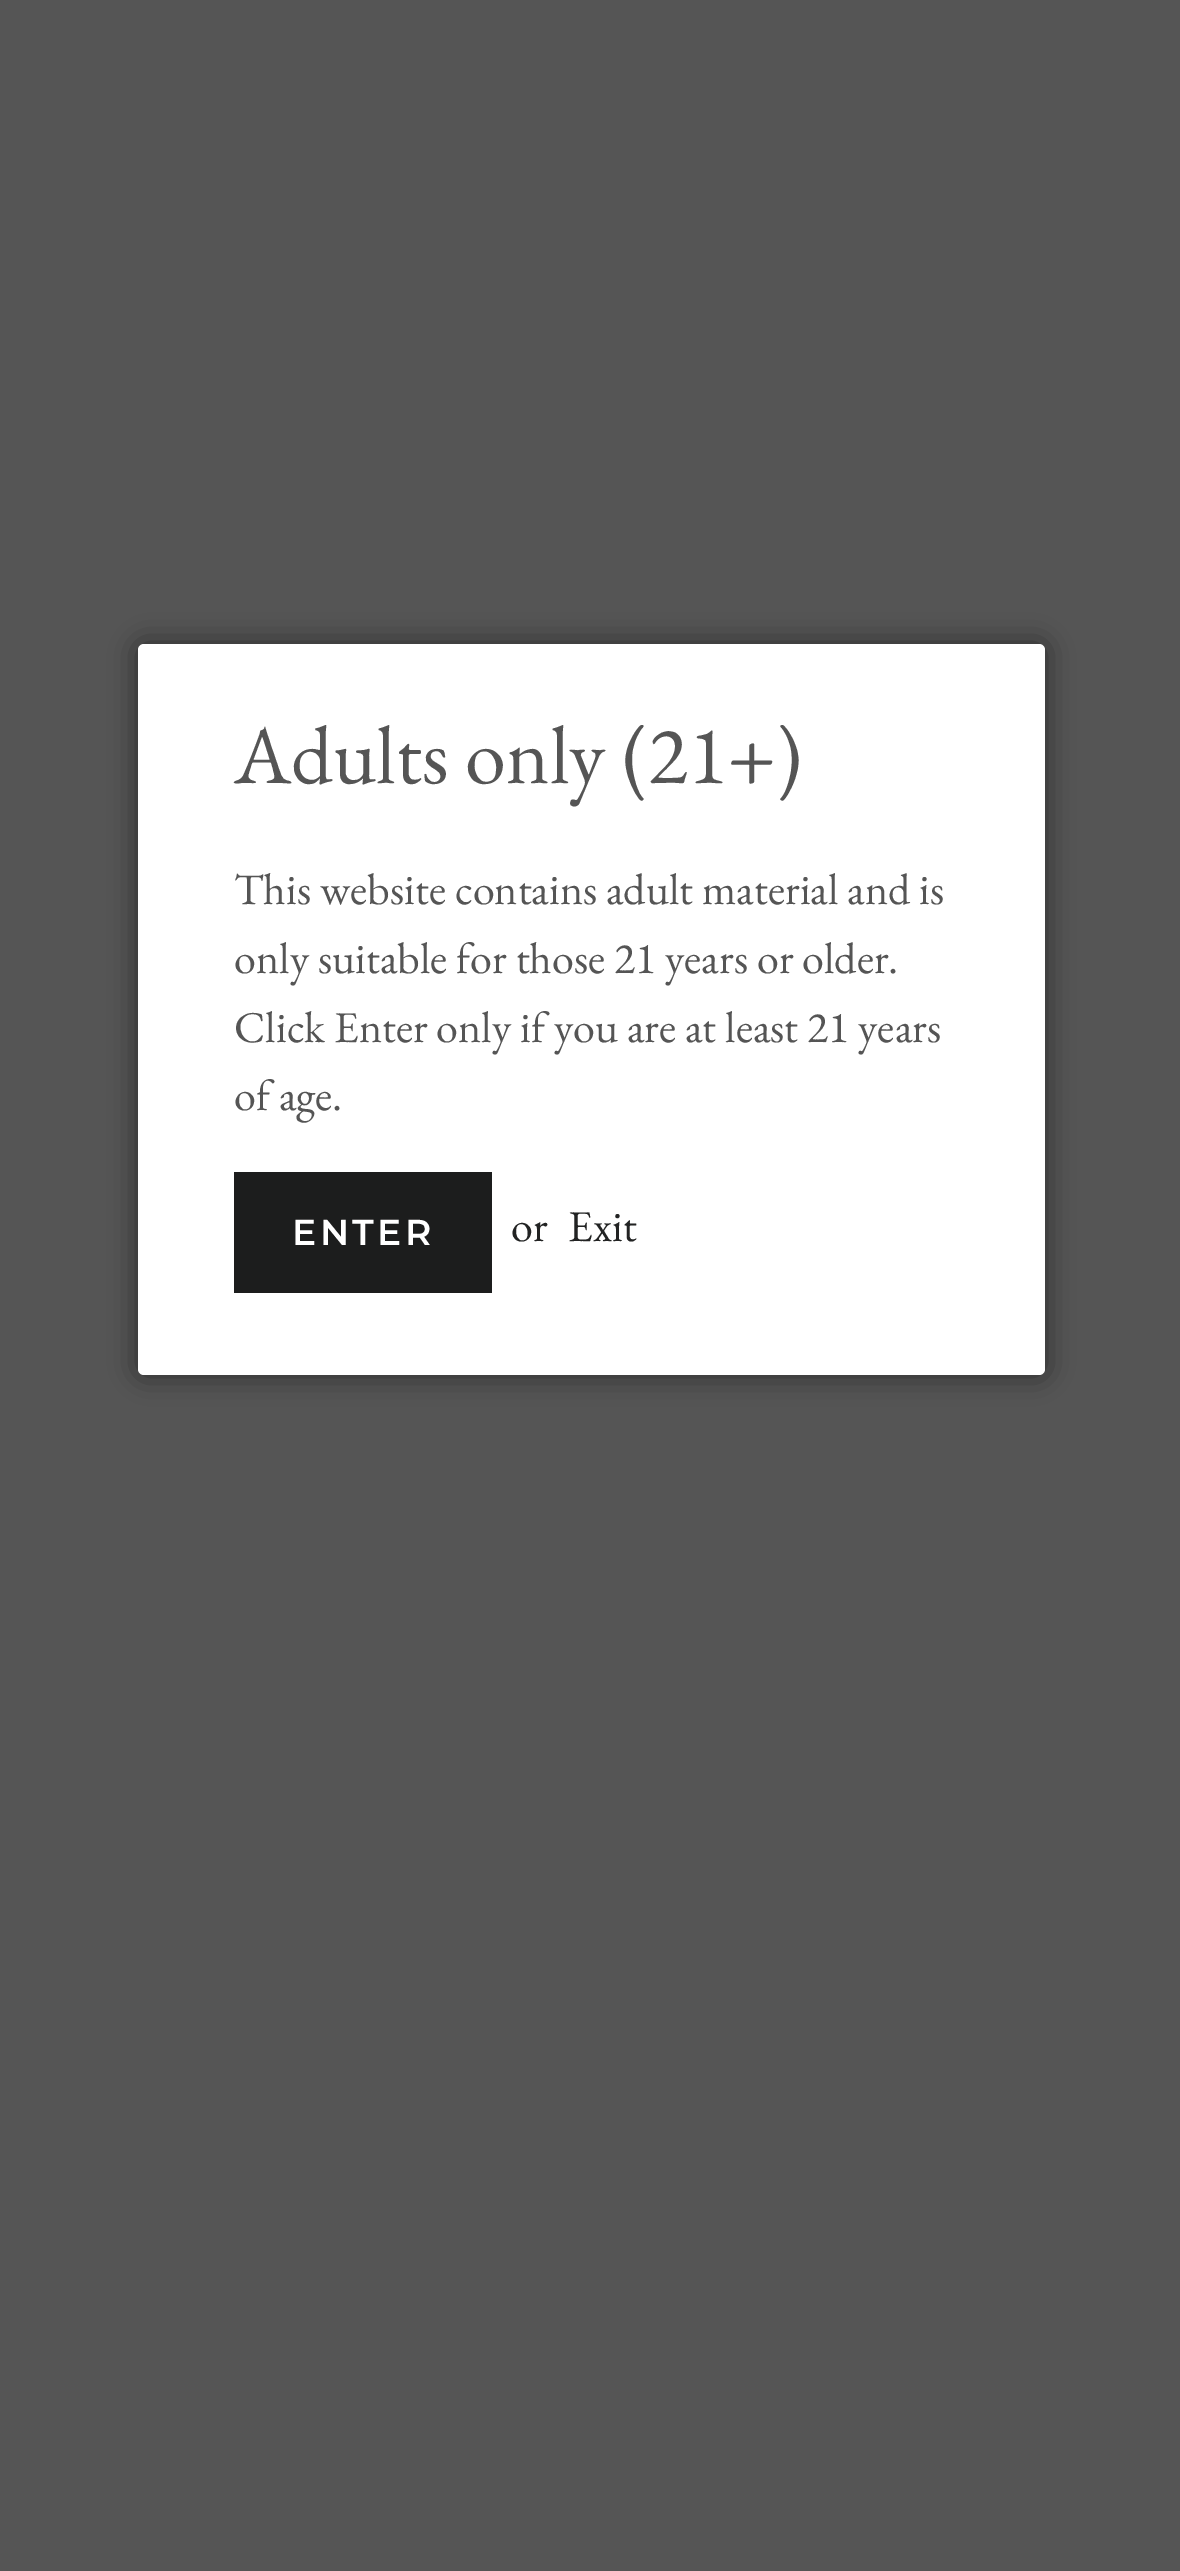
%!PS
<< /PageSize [1180 2571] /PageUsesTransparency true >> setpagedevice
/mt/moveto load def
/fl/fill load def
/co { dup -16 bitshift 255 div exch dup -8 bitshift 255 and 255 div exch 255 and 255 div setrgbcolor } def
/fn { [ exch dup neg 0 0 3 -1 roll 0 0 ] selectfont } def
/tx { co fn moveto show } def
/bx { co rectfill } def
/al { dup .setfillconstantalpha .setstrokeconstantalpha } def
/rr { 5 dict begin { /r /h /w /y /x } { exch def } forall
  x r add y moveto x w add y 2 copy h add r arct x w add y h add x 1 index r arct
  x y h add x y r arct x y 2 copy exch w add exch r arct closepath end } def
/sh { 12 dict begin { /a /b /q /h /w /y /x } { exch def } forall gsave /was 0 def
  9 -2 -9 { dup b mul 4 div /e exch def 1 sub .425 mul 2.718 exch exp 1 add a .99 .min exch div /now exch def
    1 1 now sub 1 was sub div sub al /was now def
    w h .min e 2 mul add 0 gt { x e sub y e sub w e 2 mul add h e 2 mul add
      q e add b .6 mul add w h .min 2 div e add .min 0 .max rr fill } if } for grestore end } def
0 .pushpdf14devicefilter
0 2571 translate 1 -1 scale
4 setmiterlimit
0 0 1180 2571 16#555555 bx
16#000000 co
138 644 907 731 6 14 .5 sh
16#FFFFFF co
138 644 907 731 6 rr fl
234 1172 258 121 16#1C1D1D bx
(Adults only \(21+\)) 234 783 /EBGaramond-Regular 82.5 16#555555 tx
(This website contains adult material and is) 234 904 /EBGaramond-Regular 44 16#555555 tx
(only suitable for those 21 years or older.) 234 973 /EBGaramond-Regular 44 16#555555 tx
(Click Enter only if you are at least 21 years) 234 1042 /EBGaramond-Regular 44 16#555555 tx
(of age.) 234 1110 /EBGaramond-Regular 44 16#555555 tx
/Montserrat-SemiBold 36 fn
16#FFFFFF co
292 1245 mt 3.5 0 (ENTER) ashow
(or) 511 1241 /EBGaramond-Regular 44 16#222323 tx
(Exit) 568 1241 /EBGaramond-Regular 44 16#222323 tx
.poppdf14devicefilter showpage
